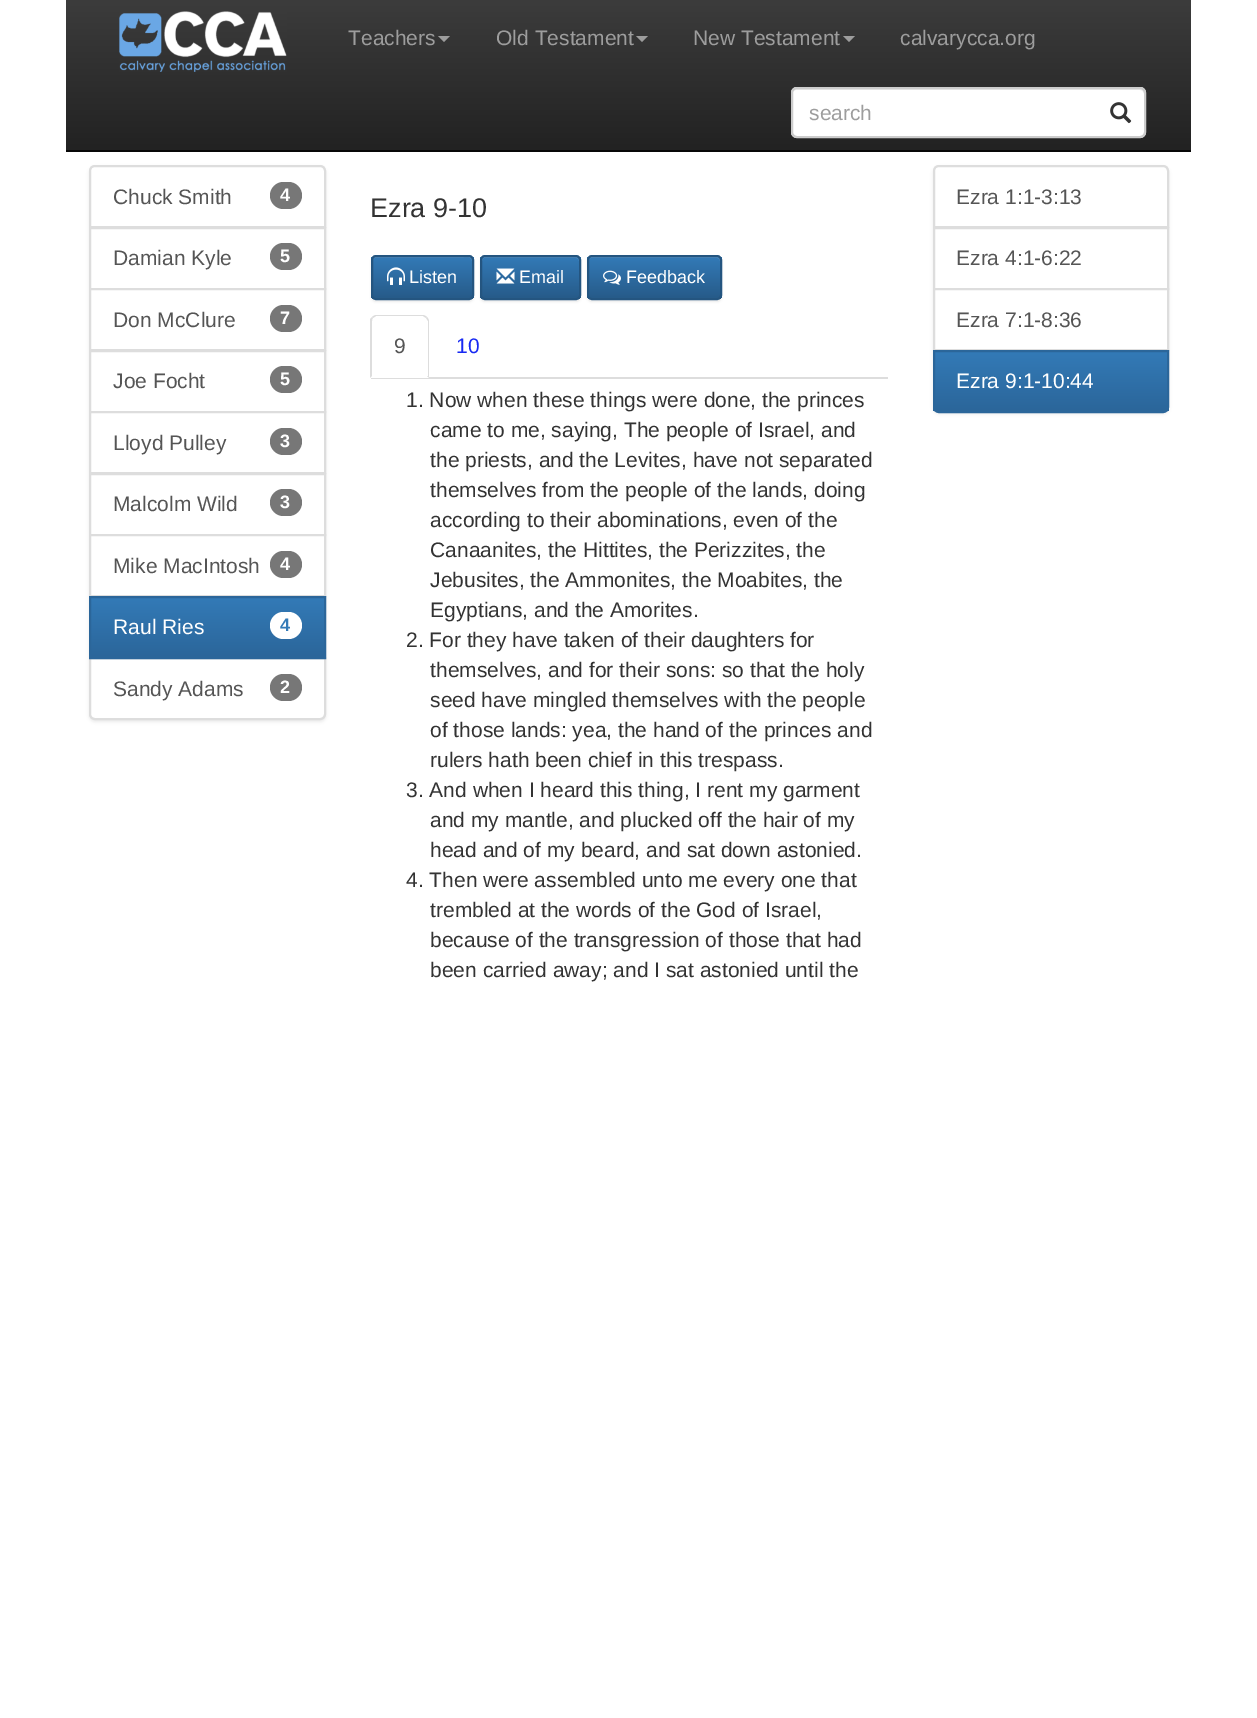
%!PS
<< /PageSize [1257 1718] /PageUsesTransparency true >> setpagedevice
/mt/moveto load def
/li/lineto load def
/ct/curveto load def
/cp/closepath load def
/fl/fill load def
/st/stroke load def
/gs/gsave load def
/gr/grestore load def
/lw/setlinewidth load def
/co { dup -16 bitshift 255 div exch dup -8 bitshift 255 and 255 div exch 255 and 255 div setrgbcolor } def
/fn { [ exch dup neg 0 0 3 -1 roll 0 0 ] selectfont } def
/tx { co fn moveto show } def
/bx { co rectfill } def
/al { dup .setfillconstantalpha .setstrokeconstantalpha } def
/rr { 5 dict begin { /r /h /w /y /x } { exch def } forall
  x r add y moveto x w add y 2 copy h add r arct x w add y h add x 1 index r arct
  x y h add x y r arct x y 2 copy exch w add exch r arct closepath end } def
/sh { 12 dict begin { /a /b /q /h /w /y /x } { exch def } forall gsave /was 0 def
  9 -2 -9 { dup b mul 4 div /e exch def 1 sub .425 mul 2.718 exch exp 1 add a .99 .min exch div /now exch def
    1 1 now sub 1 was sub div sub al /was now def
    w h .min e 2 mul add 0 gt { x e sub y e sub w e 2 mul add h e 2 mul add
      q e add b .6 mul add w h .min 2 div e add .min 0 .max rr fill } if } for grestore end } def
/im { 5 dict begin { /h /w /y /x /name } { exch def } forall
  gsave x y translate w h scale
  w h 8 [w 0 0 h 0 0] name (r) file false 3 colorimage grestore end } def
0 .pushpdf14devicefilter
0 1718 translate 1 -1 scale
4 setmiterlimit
0 0 1257 1718 16#FFFFFF bx
gs 66 0 mt 1191 0 li 1191 150 li 66 150 li cp clip newpath
<< /ShadingType 2 /ColorSpace /DeviceRGB /Coords [629 0 629 150] /Extend [true true] /Function << /FunctionType 2 /Domain [0 1] /C0 [.235 .235 .235] /C1 [.133 .133 .133] /N 1 >> >> shfill gr
66 150 1125 2 16#080808 bx
(media/1.raw) 119 11 168 61 im
16#9D9D9D co
438 36 mt 450 36 li 444 42 li cp fl
636 36 mt 648 36 li 642 42 li cp fl
843 36 mt 855 36 li 849 42 li cp fl
16#FFFFFF co
791 87 355 51 6 rr fl
16#ECECEC co
796 90 mt 1140 90 li 1142 90 1144 92 1144 94 ct 1144 135 li 1145 134 1145 133 1145 132 ct 1145 94 li 1145 91 1143 89 1140 89 ct 797 89 li 794 89 792 91 792 94 ct 792 92 794 90 796 90 ct cp fl
16#CCCCCC co
2 lw
792 88 353 49 5 rr st
(media/2.raw) 1110 102 22 22 im
16#000000 co
89 167 237 555 6 1.5 .07 sh
16#FFFFFF co
95 166 mt 320 166 li 323 166 325 168 325 171 ct 325 227 li 90 227 li 90 171 li 90 168 92 166 95 166 ct cp gs fl gr
16#DDDDDD co
st
16#777777 co
270 182 32 27 13.5 rr fl
16#FFFFFF co
90 228 mt 325 228 li 325 289 li 90 289 li cp gs fl gr
16#DDDDDD co
st
16#777777 co
270 243 32 27 13.5 rr fl
16#FFFFFF co
90 289 mt 325 289 li 325 350 li 90 350 li cp gs fl gr
16#DDDDDD co
st
16#777777 co
270 305 32 27 13.5 rr fl
16#FFFFFF co
90 351 mt 325 351 li 325 412 li 90 412 li cp gs fl gr
16#DDDDDD co
st
16#777777 co
270 366 32 27 13.5 rr fl
16#FFFFFF co
90 412 mt 325 412 li 325 473 li 90 473 li cp gs fl gr
16#DDDDDD co
st
16#777777 co
270 428 32 27 13.5 rr fl
16#FFFFFF co
90 474 mt 325 474 li 325 535 li 90 535 li cp gs fl gr
16#DDDDDD co
st
16#777777 co
270 489 32 27 13.5 rr fl
16#FFFFFF co
90 535 mt 325 535 li 325 596 li 90 596 li cp gs fl gr
16#DDDDDD co
st
16#777777 co
270 551 32 27 13.5 rr fl
gs 91 598 mt 324 598 li 324 657 li 91 657 li cp clip newpath
<< /ShadingType 2 /ColorSpace /DeviceRGB /Coords [207 597 207 657] /Extend [true true] /Function << /FunctionType 2 /Domain [0 1] /C0 [.2 .478 .718] /C1 [.169 .4 .604] /N 1 >> >> shfill gr
16#FFFFFF co
90 658 mt 325 658 li 325 714 li 325 717 323 719 320 719 ct 95 719 li 92 719 90 717 90 714 ct cp gs fl gr
16#DDDDDD co
st
16#2B669A co
90 597 235 61 rectstroke
16#FFFFFF co
270 612 32 27 13.5 rr fl
16#777777 co
270 674 32 27 13.5 rr fl
16#000000 co
371 257 103 45 5 1 .07 sh
gs
371 255 103 45 5 rr clip newpath
gs 371 257 mt 474 257 li 474 299 li 371 299 li cp clip newpath
<< /ShadingType 2 /ColorSpace /DeviceRGB /Coords [422 257 422 299] /Extend [true true] /Function << /FunctionType 2 /Domain [0 1] /C0 [.2 .478 .718] /C1 [.149 .353 .533] /N 1 >> >> shfill gr
gr
0.15 al
16#FFFFFF co
375 258 mt 454 258 li 475 258 472 254 472 273 ct 472 298 li 473 298 473 297 473 296 ct 473 260 li 473 258 472 257 470 257 ct 375 257 li 373 257 372 258 372 260 ct 372 261 li 372 259 373 258 375 258 ct cp fl
1 al
16#245580 co
372 256 101 43 4 rr st
(media/3.raw) 387 267 18 18 im
16#000000 co
480 257 101 45 5 1 .07 sh
gs
480 255 101 45 5 rr clip newpath
gs 480 257 mt 581 257 li 581 299 li 480 299 li cp clip newpath
<< /ShadingType 2 /ColorSpace /DeviceRGB /Coords [530 257 530 299] /Extend [true true] /Function << /FunctionType 2 /Domain [0 1] /C0 [.2 .478 .718] /C1 [.149 .353 .533] /N 1 >> >> shfill gr
gr
16#528EC1 co
484 258 mt 576 258 li 578 258 579 259 579 261 ct 579 253 564 257 561 257 ct 500 257 li 497 257 482 253 482 261 ct 482 259 483 258 484 258 ct cp fl
16#245580 co
481 256 99 43 4 rr st
(media/4.raw) 496 268 19 16 im
16#000000 co
587 257 135 45 5 1 .07 sh
gs
587 255 135 45 5 rr clip newpath
gs 587 257 mt 722 257 li 722 299 li 587 299 li cp clip newpath
<< /ShadingType 2 /ColorSpace /DeviceRGB /Coords [654 257 654 299] /Extend [true true] /Function << /FunctionType 2 /Domain [0 1] /C0 [.2 .478 .718] /C1 [.149 .353 .533] /N 1 >> >> shfill gr
gr
16#528EC1 co
591 258 mt 717 258 li 719 258 720 259 720 261 ct 720 259 720 257 718 257 ct 590 257 li 588 257 588 259 588 261 ct 588 259 589 258 591 258 ct cp fl
16#245580 co
588 256 133 43 4 rr st
(media/5.raw) 603 270 18 15 im
371 377 517 2 16#DDDDDD bx
16#FFFFFF co
377 315 mt 423 315 li 426.5 315 429 317.5 429 321 ct 429 378 li 371 378 li 371 321 li 371 317.5 373.5 315 377 315 ct cp fl
16#DDDDDD co
376 315 mt 375 315 373 316 372 317 ct 373 318 li 376 316 li 423 316 li 426 318 li 427 317 li 426 316 424 315 423 315 ct cp fl
429 378 mt 429 321 li 429 320 428 318 427 317 ct 426 318 li 428 321 li 428 376 li 427 376 li cp 370 378 mt 370 319 li 372 317 li 373 318 li 372 319 372 320 372 321 ct 372 376 li cp fl
16#000000 co
933 167 236 247 6 1.5 .07 sh
16#FFFFFF co
939 166 mt 1163 166 li 1166 166 1168 168 1168 171 ct 1168 227 li 934 227 li 934 171 li 934 168 936 166 939 166 ct cp gs fl gr
16#DDDDDD co
st
16#FFFFFF co
934 228 mt 1168 228 li 1168 289 li 934 289 li cp gs fl gr
16#DDDDDD co
st
16#FFFFFF co
934 289 mt 1168 289 li 1168 350 li 934 350 li cp gs fl gr
16#DDDDDD co
st
gs
933 350 mt 1169 350 li 1169 407 li 1169 410.5 1166.5 413 1163 413 ct 939 413 li 935.5 413 933 410.5 933 407 ct cp clip newpath
gs 933 352 mt 1169 352 li 1169 411 li 933 411 li cp clip newpath
<< /ShadingType 2 /ColorSpace /DeviceRGB /Coords [1051 351 1051 411] /Extend [true true] /Function << /FunctionType 2 /Domain [0 1] /C0 [.2 .478 .718] /C1 [.169 .4 .604] /N 1 >> >> shfill gr
gr
16#2B669A co
934 351 mt 1168 351 li 1168 407 li 1168 410 1166 412 1163 412 ct 939 412 li 936 412 934 410 934 407 ct cp st
(Teachers) 348 45 /LiberationSans-Regular 21 16#9D9D9D tx
(Old Testament) 496 45 /LiberationSans-Regular 21 16#9D9D9D tx
(New Testament) 693 45 /LiberationSans-Regular 21 16#9D9D9D tx
(calvarycca.org) 900 45 /LiberationSans-Regular 21 16#9D9D9D tx
(search) 809 120 /LiberationSans-Regular 21 16#9D9D9D tx
(Chuck Smith) 113 204 /LiberationSans-Regular 21 16#555555 tx
(4) 280 201 /LiberationSans-Bold 18 16#FFFFFF tx
(Damian Kyle) 113 265 /LiberationSans-Regular 21 16#555555 tx
(5) 280 262 /LiberationSans-Bold 18 16#FFFFFF tx
(Don McClure) 113 327 /LiberationSans-Regular 21 16#555555 tx
(7) 280 324 /LiberationSans-Bold 18 16#FFFFFF tx
(Joe Focht) 113 388 /LiberationSans-Regular 21 16#555555 tx
(5) 280 385 /LiberationSans-Bold 18 16#FFFFFF tx
(Lloyd Pulley) 113 450 /LiberationSans-Regular 21 16#555555 tx
(3) 280 447 /LiberationSans-Bold 18 16#FFFFFF tx
(Malcolm Wild) 113 511 /LiberationSans-Regular 21 16#555555 tx
(3) 280 508 /LiberationSans-Bold 18 16#FFFFFF tx
(Mike MacIntosh) 113 573 /LiberationSans-Regular 21 16#555555 tx
(4) 280 570 /LiberationSans-Bold 18 16#FFFFFF tx
(Raul Ries) 113 634 /LiberationSans-Regular 21 16#FFFFFF tx
(4) 280 631 /LiberationSans-Bold 18 16#337AB7 tx
(Sandy Adams) 113 696 /LiberationSans-Regular 21 16#555555 tx
(2) 280 693 /LiberationSans-Bold 18 16#FFFFFF tx
(Ezra 9-10) 370 217 /LiberationSans-Regular 27 16#333333 tx
(Listen) 409 283 /LiberationSans-Regular 18 16#FFFFFF tx
(Email) 519 283 /LiberationSans-Regular 18 16#FFFFFF tx
(Feedback) 626 283 /LiberationSans-Regular 18 16#FFFFFF tx
(9) 394 353 /LiberationSans-Regular 21 16#555555 tx
(10) 456 353 /LiberationSans-Regular 21 16#1729F2 tx
(1. Now when these things were done, the princes) 406 407 /LiberationSans-Regular 21 16#333333 tx
(came to me, saying, The people of Israel, and) 430 437 /LiberationSans-Regular 21 16#333333 tx
(the priests, and the Levites, have not separated) 430 467 /LiberationSans-Regular 21 16#333333 tx
(themselves from the people of the lands, doing) 430 497 /LiberationSans-Regular 21 16#333333 tx
(according to their abominations, even of the) 430 527 /LiberationSans-Regular 21 16#333333 tx
(Canaanites, the Hittites, the Perizzites, the) 430 557 /LiberationSans-Regular 21 16#333333 tx
(Jebusites, the Ammonites, the Moabites, the) 430 587 /LiberationSans-Regular 21 16#333333 tx
(Egyptians, and the Amorites.) 430 617 /LiberationSans-Regular 21 16#333333 tx
(2. For they have taken of their daughters for) 406 647 /LiberationSans-Regular 21 16#333333 tx
(themselves, and for their sons: so that the holy) 430 677 /LiberationSans-Regular 21 16#333333 tx
(seed have mingled themselves with the people) 430 707 /LiberationSans-Regular 21 16#333333 tx
(of those lands: yea, the hand of the princes and) 430 737 /LiberationSans-Regular 21 16#333333 tx
(rulers hath been chief in this trespass.) 430 767 /LiberationSans-Regular 21 16#333333 tx
(3. And when I heard this thing, I rent my garment) 406 797 /LiberationSans-Regular 21 16#333333 tx
(and my mantle, and plucked off the hair of my) 430 827 /LiberationSans-Regular 21 16#333333 tx
(head and of my beard, and sat down astonied.) 430 857 /LiberationSans-Regular 21 16#333333 tx
(4. Then were assembled unto me every one that) 406 887 /LiberationSans-Regular 21 16#333333 tx
(trembled at the words of the God of Israel,) 430 917 /LiberationSans-Regular 21 16#333333 tx
(because of the transgression of those that had) 430 947 /LiberationSans-Regular 21 16#333333 tx
(been carried away; and I sat astonied until the) 430 977 /LiberationSans-Regular 21 16#333333 tx
(Ezra 1:1-3:13) 956 204 /LiberationSans-Regular 21 16#555555 tx
(Ezra 4:1-6:22) 956 265 /LiberationSans-Regular 21 16#555555 tx
(Ezra 7:1-8:36) 956 327 /LiberationSans-Regular 21 16#555555 tx
(Ezra 9:1-10:44) 956 388 /LiberationSans-Regular 21 16#FFFFFF tx
.poppdf14devicefilter showpage
